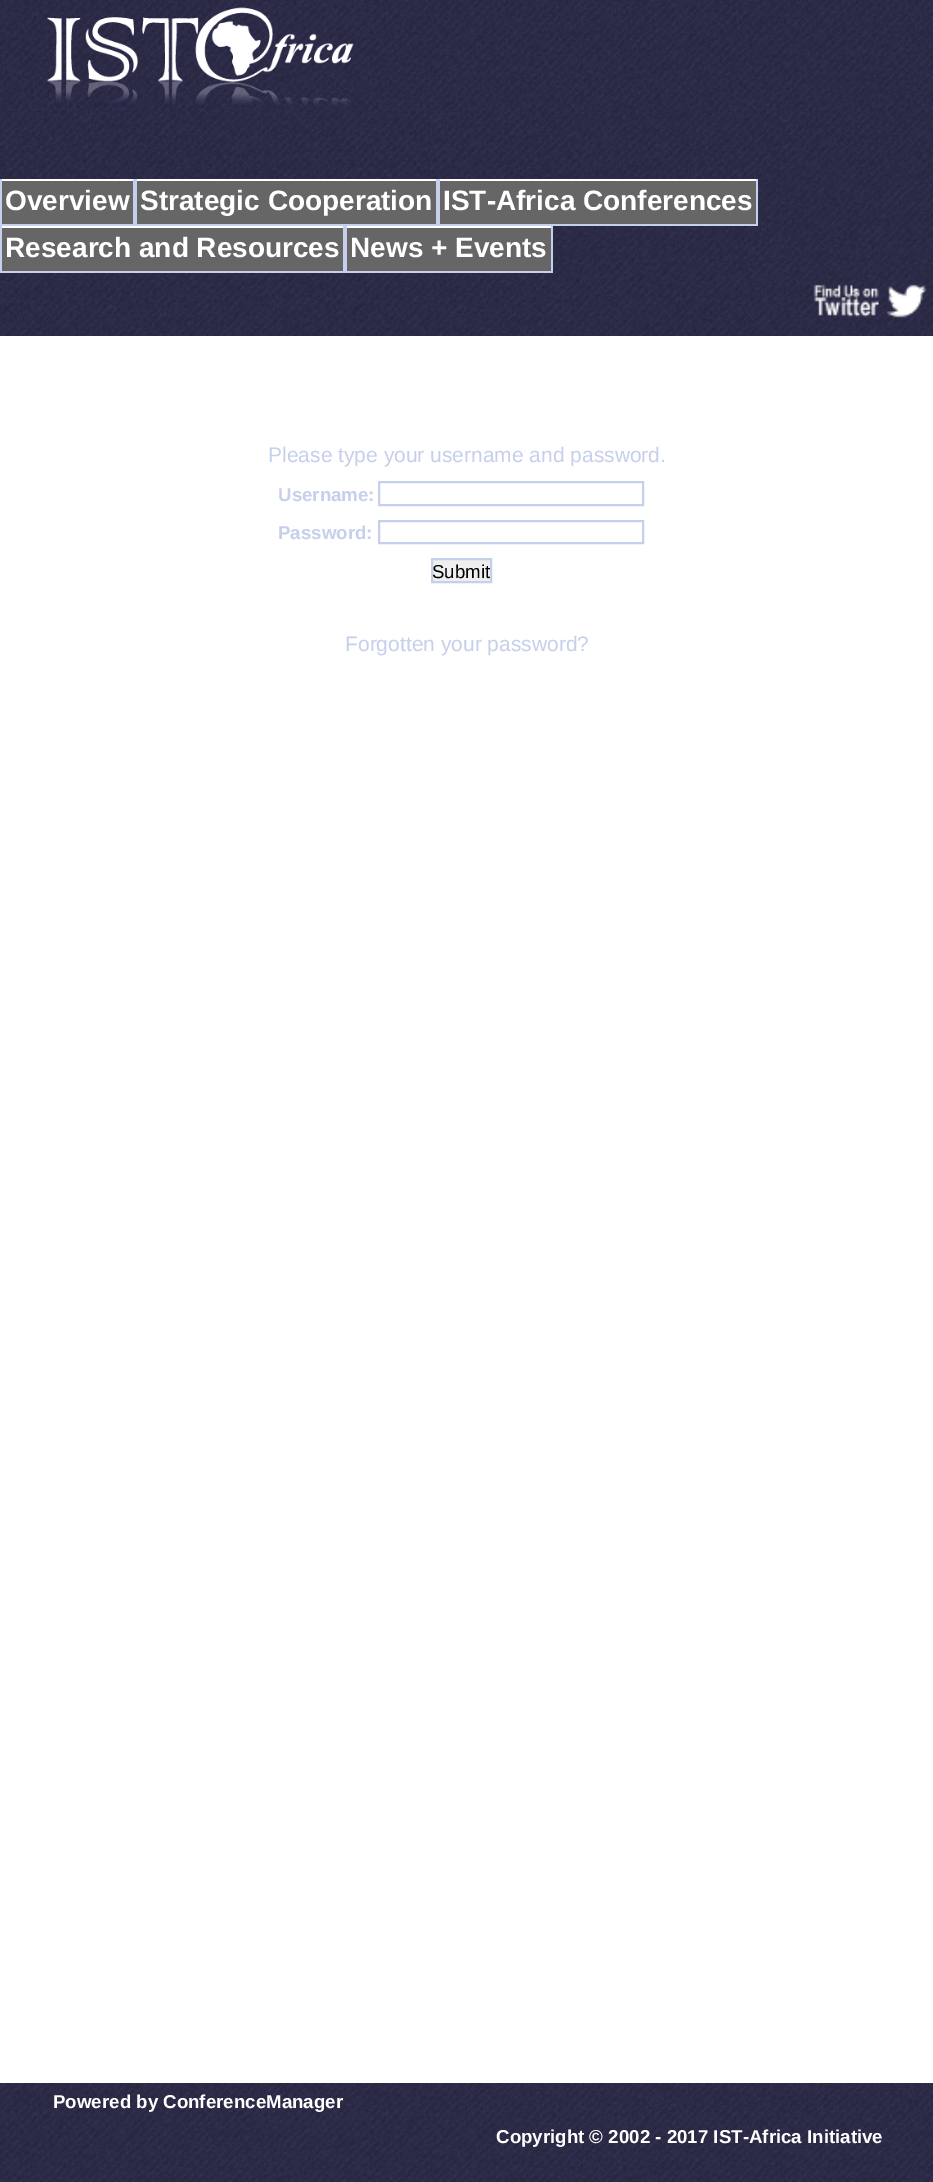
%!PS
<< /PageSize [933 2182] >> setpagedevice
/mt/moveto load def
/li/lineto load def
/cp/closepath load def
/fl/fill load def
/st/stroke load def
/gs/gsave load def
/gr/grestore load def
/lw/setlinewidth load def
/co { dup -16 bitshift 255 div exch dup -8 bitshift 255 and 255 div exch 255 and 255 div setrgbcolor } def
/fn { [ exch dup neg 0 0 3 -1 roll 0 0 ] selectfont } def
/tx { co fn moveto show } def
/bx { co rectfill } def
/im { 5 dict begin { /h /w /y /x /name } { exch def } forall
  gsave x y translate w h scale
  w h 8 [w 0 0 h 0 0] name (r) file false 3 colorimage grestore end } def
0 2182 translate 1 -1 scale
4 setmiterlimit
0 0 933 2182 16#FFFFFF bx
(media/1.raw) 0 0 933 2182 im
(media/2.raw) 47 7 307 100 im
2 181 131 43 16#666666 bx
0 179 758 2 16#FFFFFF bx
133 179 2 47 16#C6CFEB bx
0 224 135 2 16#C6CFEB bx
0 179 2 47 16#C6CFEB bx
137 181 299 43 16#666666 bx
436 179 2 47 16#C6CFEB bx
135 224 303 2 16#C6CFEB bx
135 179 2 47 16#C6CFEB bx
440 181 316 43 16#666666 bx
756 179 2 47 16#C6CFEB bx
438 224 320 2 16#C6CFEB bx
438 179 2 47 16#C6CFEB bx
2 228 341 43 16#666666 bx
0 226 553 2 16#FFFFFF bx
343 226 2 47 16#C6CFEB bx
0 271 345 2 16#C6CFEB bx
0 226 2 47 16#C6CFEB bx
347 228 204 43 16#666666 bx
551 226 2 47 16#C6CFEB bx
345 271 208 2 16#C6CFEB bx
345 226 2 47 16#C6CFEB bx
(media/3.raw) 813 284 66 34 im
(media/4.raw) 887 284 40 34 im
0 336 933 1747 16#FFFFFF bx
16#C6CFEB co
2 lw
379 482 264 23 rectstroke
379 521 264 22 rectstroke
16#EFEFEF co
432 559 mt 491 559 li 491 582 li 432 582 li cp gs fl gr
16#C6CFEB co
st
(Overview) 5 210 /LiberationSans-Bold 28 16#FFFFFF tx
(Strategic Cooperation) 140 210 /LiberationSans-Bold 28 16#FFFFFF tx
(IST-Africa Conferences) 443 210 /LiberationSans-Bold 28 16#FFFFFF tx
(Research and Resources) 5 257 /LiberationSans-Bold 28 16#FFFFFF tx
(News + Events) 350 257 /LiberationSans-Bold 28 16#FFFFFF tx
(Please type your username and password.) 268 462 /LiberationSans-Regular 21 16#C6CFEB tx
(Username:) 278 501 /LiberationSans-Bold 18.7 16#C6CFEB tx
(Password:) 278 539 /LiberationSans-Bold 18.7 16#C6CFEB tx
(Submit) 432 578 /LiberationSans-Regular 18.7 16#000000 tx
(Forgotten your password?) 345 651 /LiberationSans-Regular 21 16#C6CFEB tx
(Powered by ConferenceManager) 53 2108 /LiberationSans-Bold 18.7 16#FFFFFF tx
(Copyright © 2002 - 2017 IST-Africa Initiative) 496 2143 /LiberationSans-Bold 18.7 16#FFFFFF tx
showpage
